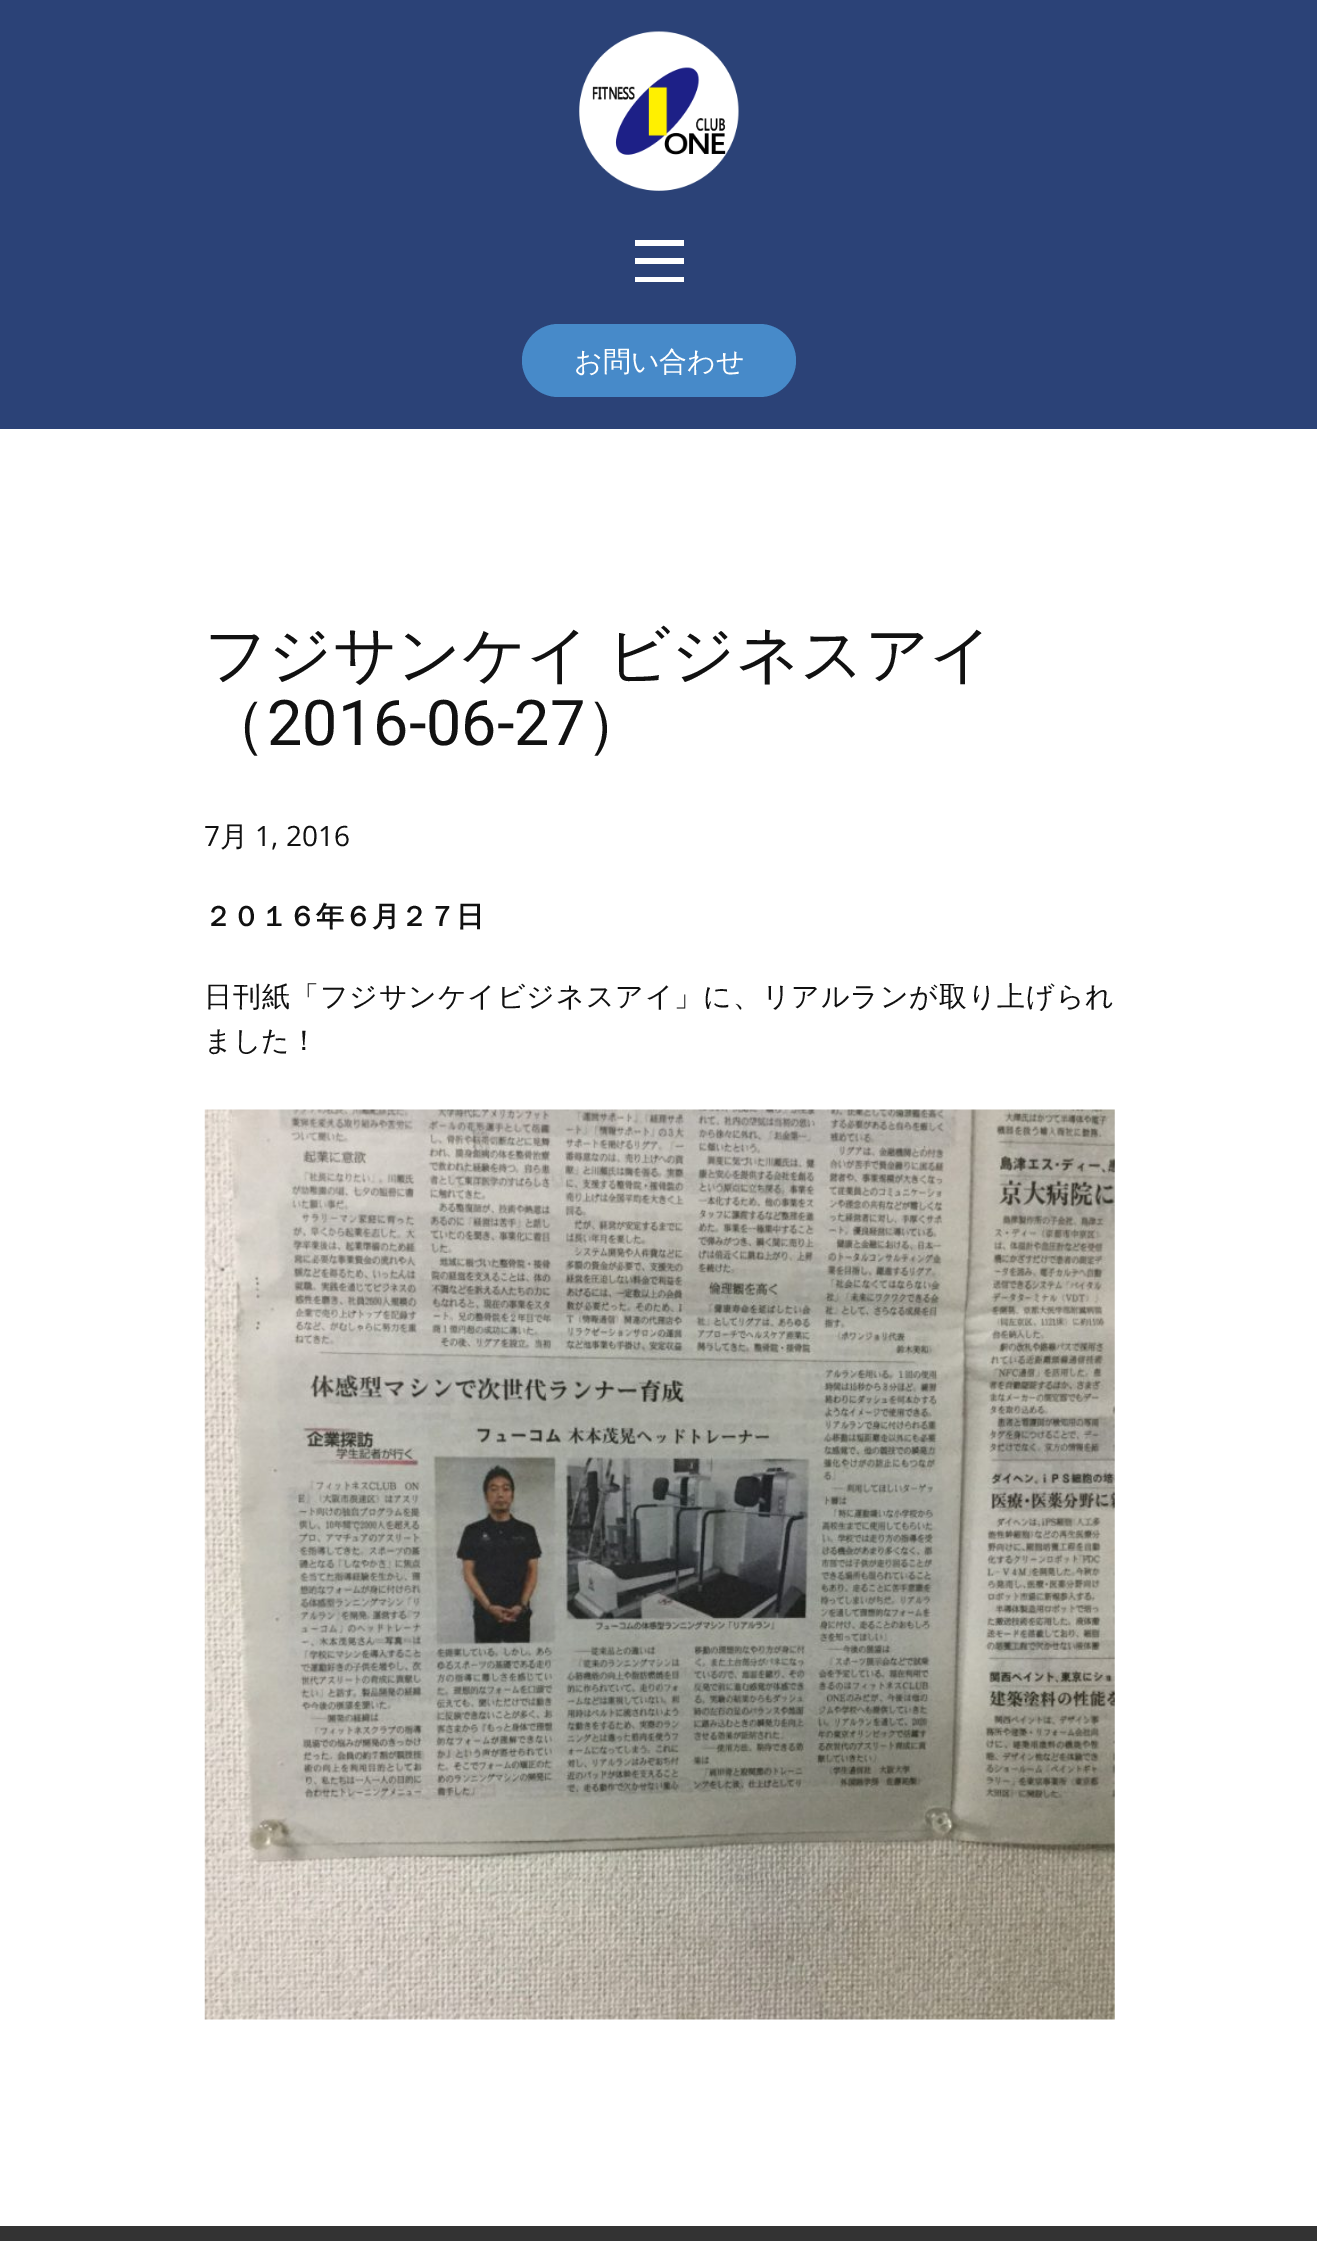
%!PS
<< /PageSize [1317 2241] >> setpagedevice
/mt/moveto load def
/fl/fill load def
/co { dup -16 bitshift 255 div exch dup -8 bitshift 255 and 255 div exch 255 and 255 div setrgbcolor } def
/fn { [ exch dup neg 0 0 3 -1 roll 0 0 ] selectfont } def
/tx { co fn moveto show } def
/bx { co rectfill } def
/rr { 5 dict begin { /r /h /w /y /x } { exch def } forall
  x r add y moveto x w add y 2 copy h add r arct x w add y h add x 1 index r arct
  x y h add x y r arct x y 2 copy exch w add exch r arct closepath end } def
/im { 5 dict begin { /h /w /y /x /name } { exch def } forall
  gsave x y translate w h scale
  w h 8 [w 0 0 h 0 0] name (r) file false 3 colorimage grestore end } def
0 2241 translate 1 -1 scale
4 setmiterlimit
0 0 1317 2241 16#FFFFFF bx
0 0 1317 429 16#2B4277 bx
(media/1.raw) 579 31 160 160 im
635 240 49 6 16#FFFFFF bx
635 258 49 6 16#FFFFFF bx
635 277 49 5 16#FFFFFF bx
16#478AC9 co
522 324 274 73 36.5 rr fl
(media/2.raw) 204 1109 911 911 im
0 2226 1317 15 16#333333 bx
(お問い合わせ) 574 371 /WenQuanYiZenHei-Medium 28 16#FFFFFF tx
/WenQuanYiZenHei-Medium 63 fn
16#111111 co
204 676 mt -3 0 32 (フジサンケイ ビジネスアイ) widthshow
(（) 204 745 /WenQuanYiZenHei-Medium 63 16#111111 tx
(2016-06-27) 267 745 /Roboto-Regular 63 16#111111 tx
(）) 585 745 /WenQuanYiZenHei-Medium 63 16#111111 tx
(7) 204 846 /OpenSans-Regular 28 16#111111 tx
(月) 220 846 /WenQuanYiZenHei-Medium 28 16#111111 tx
(1, 2016) 255 846 /OpenSans-Regular 28 16#111111 tx
(２０１６年６月２７日) 204 926 /WenQuanYiZenHei-Bold 28 16#111111 tx
/WenQuanYiZenHei-Medium 28 fn
204 1006 mt .9 0 (日刊紙「フジサンケイビジネスアイ」に、リアルランが取り上げられ) ashow
(ました！) 204 1050 /WenQuanYiZenHei-Medium 28 16#111111 tx
showpage
